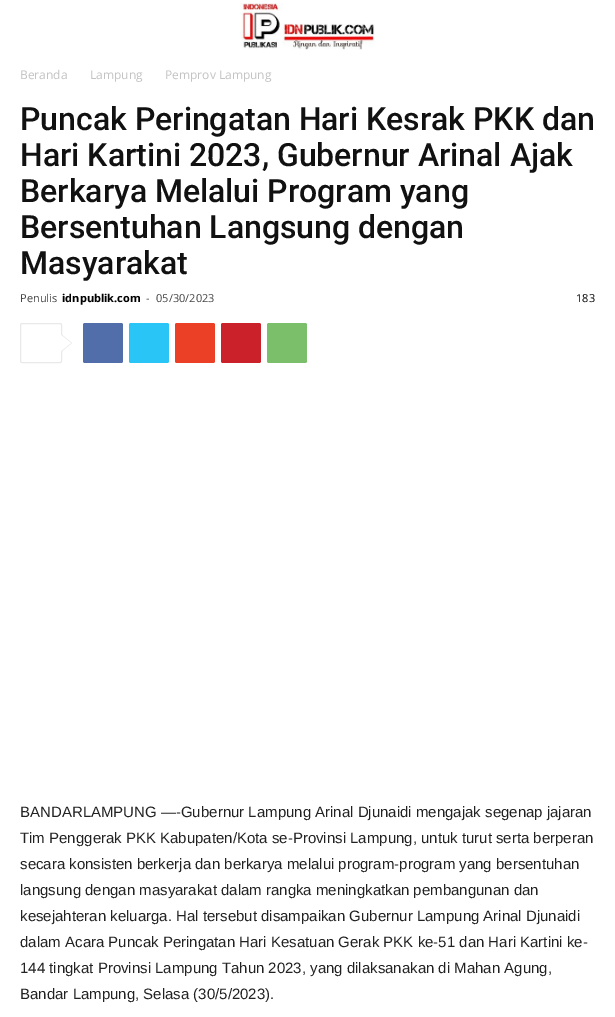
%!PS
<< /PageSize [615 1017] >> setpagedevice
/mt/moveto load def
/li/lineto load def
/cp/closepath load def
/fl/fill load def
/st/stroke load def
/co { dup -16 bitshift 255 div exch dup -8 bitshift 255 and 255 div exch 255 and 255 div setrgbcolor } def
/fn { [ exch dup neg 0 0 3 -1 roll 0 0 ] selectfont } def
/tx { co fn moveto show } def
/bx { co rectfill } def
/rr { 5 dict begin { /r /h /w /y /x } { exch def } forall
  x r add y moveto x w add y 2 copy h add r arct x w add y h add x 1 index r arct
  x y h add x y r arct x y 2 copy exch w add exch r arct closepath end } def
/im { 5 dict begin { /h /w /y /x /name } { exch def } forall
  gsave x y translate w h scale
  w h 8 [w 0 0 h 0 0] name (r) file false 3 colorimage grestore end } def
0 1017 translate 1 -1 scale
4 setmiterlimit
0 0 615 1017 16#FFFFFF bx
(media/1.raw) 240 3 135 47 im
16#E9E9E9 co
20.5 323.5 41 39 1.5 rr st
61 352 mt 61 334 li 72 343 li cp fl
16#FFFFFF co
61 351 mt 61 335 li 71 343 li cp fl
16#516EAB co
83 323 40 40 2 rr fl
16#29C5F6 co
129 323 40 40 2 rr fl
16#EB4026 co
175 323 40 40 2 rr fl
16#CA212A co
221 323 40 40 2 rr fl
16#7BBF6A co
267 323 40 40 2 rr fl
(Beranda) 20 79 /OpenSans-Regular 12 16#C3C3C3 tx
(Lampung) 90 79 /OpenSans-Regular 12 16#C3C3C3 tx
(Pemprov Lampung) 165 79 /OpenSans-Regular 12 16#C3C3C3 tx
(Puncak Peringatan Hari Kesrak PKK dan) 20 130 /Roboto-Medium 32 16#111111 tx
(Hari Kartini 2023, Gubernur Arinal Ajak) 20 166 /Roboto-Medium 32 16#111111 tx
(Berkarya Melalui Program yang) 20 202 /Roboto-Medium 32 16#111111 tx
(Bersentuhan Langsung dengan) 20 238 /Roboto-Medium 32 16#111111 tx
(Masyarakat) 20 274 /Roboto-Medium 32 16#111111 tx
(Penulis) 20 302 /OpenSans-Regular 11 16#444444 tx
(idnpublik.com) 62 302 /OpenSans-Bold 11 16#000000 tx
(-) 146 302 /OpenSans-Regular 11 16#444444 tx
(05/30/2023) 156 302 /OpenSans-Regular 11 16#444444 tx
(183) 576 302 /OpenSans-Regular 11 16#000000 tx
(BANDARLAMPUNG —-Gubernur Lampung Arinal Djunaidi mengajak segenap jajaran) 20 817 /LiberationSans-Regular 15 16#222222 tx
(Tim Penggerak PKK Kabupaten/Kota se-Provinsi Lampung, untuk turut serta berperan) 20 843 /LiberationSans-Regular 15 16#222222 tx
(secara konsisten berkerja dan berkarya melalui program-program yang bersentuhan) 20 869 /LiberationSans-Regular 15 16#222222 tx
(langsung dengan masyarakat dalam rangka meningkatkan pembangunan dan) 20 895 /LiberationSans-Regular 15 16#222222 tx
(kesejahteran keluarga. Hal tersebut disampaikan Gubernur Lampung Arinal Djunaidi) 20 921 /LiberationSans-Regular 15 16#222222 tx
(dalam Acara Puncak Peringatan Hari Kesatuan Gerak PKK ke-51 dan Hari Kartini ke-) 20 947 /LiberationSans-Regular 15 16#222222 tx
(144 tingkat Provinsi Lampung Tahun 2023, yang dilaksanakan di Mahan Agung,) 20 973 /LiberationSans-Regular 15 16#222222 tx
(Bandar Lampung, Selasa \(30/5/2023\).) 20 999 /LiberationSans-Regular 15 16#222222 tx
showpage
